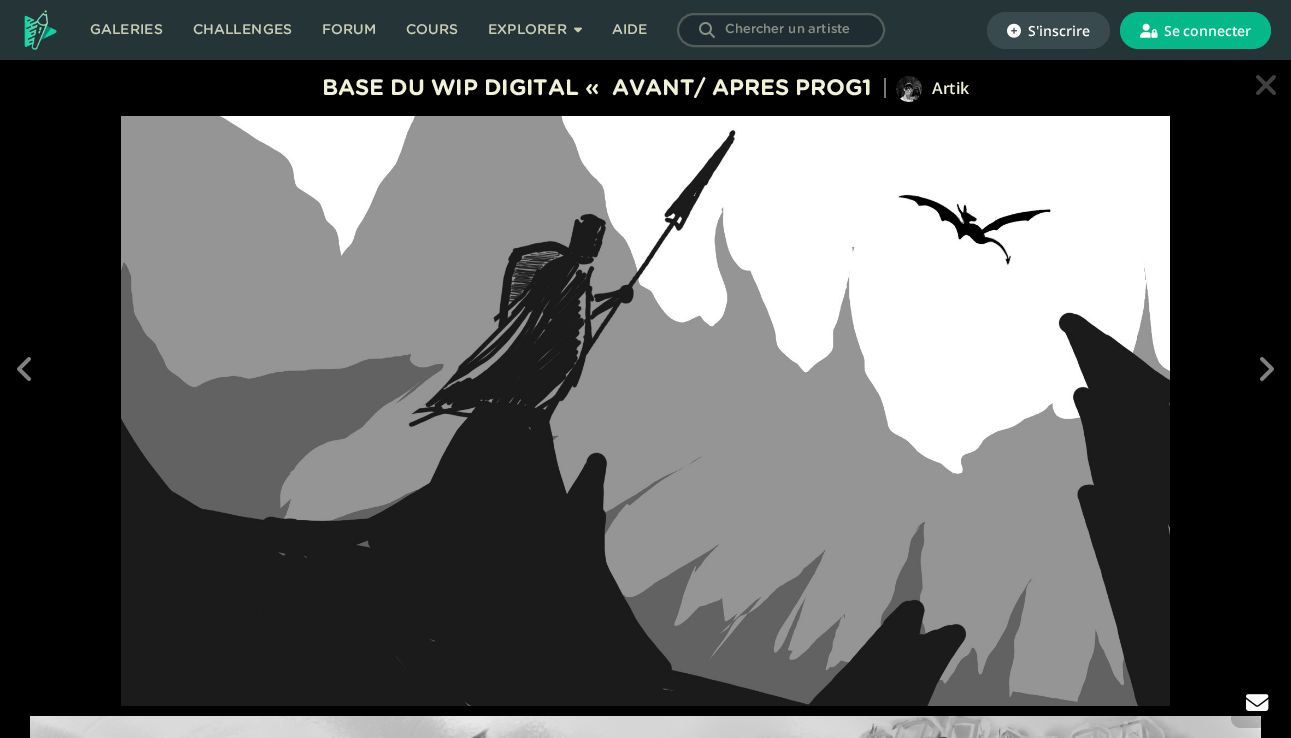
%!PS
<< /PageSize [1291 738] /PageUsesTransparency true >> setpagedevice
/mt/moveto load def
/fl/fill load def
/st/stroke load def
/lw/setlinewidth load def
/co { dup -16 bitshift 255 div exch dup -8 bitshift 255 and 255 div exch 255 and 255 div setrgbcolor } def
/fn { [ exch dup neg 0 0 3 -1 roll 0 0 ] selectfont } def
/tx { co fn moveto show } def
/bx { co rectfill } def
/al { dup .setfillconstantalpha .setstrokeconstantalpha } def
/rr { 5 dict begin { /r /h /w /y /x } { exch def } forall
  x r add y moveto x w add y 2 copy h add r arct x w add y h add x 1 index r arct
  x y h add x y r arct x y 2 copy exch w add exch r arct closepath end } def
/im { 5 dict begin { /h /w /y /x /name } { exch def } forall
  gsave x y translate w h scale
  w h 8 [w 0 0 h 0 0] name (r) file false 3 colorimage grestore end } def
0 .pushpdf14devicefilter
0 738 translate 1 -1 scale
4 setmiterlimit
0 0 1291 738 16#000000 bx
0 0 1291 60 16#253437 bx
(media/1.raw) 24 10 33 40 im
(media/2.raw) 574 27 8 6 im
16#1F2C31 co
677 13 208 34 17 rr fl
0.3 al
16#C7CAB4 co
2 lw
678 14 206 32 16 rr st
1 al
(media/3.raw) 699 22 16 16 im
16#384A4E co
987 12 123 37 18.5 rr fl
(media/4.raw) 1007 23 14 15 im
16#04B889 co
1120 12 151 37 18.5 rr fl
(media/5.raw) 1140 23 18 15 im
(media/6.raw) 1256 75 20 20 im
(media/7.raw) 17 357 14 24 im
(media/8.raw) 1260 357 14 24 im
884 78 2 20 16#79796F bx
(media/9.raw) 896 76 26 26 im
(media/10.raw) 121 116 1049 590 im
(media/11.raw) 30 716 1231 22 im
0.2 al
16#000000 co
1231 678 50 50 10 rr fl
1 al
(media/12.raw) 1246 694 23 17 im
(GALERIES) 90 34 /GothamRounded-Medium 14 16#C8CBB5 tx
(CHALLENGES) 193 34 /GothamRounded-Medium 14 16#C8CBB5 tx
(FORUM) 322 34 /GothamRounded-Medium 14 16#C8CBB5 tx
(COURS) 406 34 /GothamRounded-Medium 14 16#C8CBB5 tx
(EXPLORER) 488 34 /GothamRounded-Medium 14 16#C8CBB5 tx
(AIDE) 612 34 /GothamRounded-Medium 14 16#C8CBB5 tx
(Chercher un artiste) 725 33 /GothamRounded-Medium 13 16#888F83 tx
(S'inscrire) 1028 36 /OpenSans-SemiBold 14 16#FFFFFF tx
(Se connecter) 1164 36 /OpenSans-SemiBold 14 16#FFFFFF tx
/GothamRounded-Bold 22.4 fn
16#F1F1D5 co
322 95 mt -.2 0 (BASE DU WIP DIGITAL «  AVANT/ APRES PROG1) ashow
(Artik) 932 94 /OpenSans-SemiBold 16 16#F1F1D5 tx
.poppdf14devicefilter showpage
